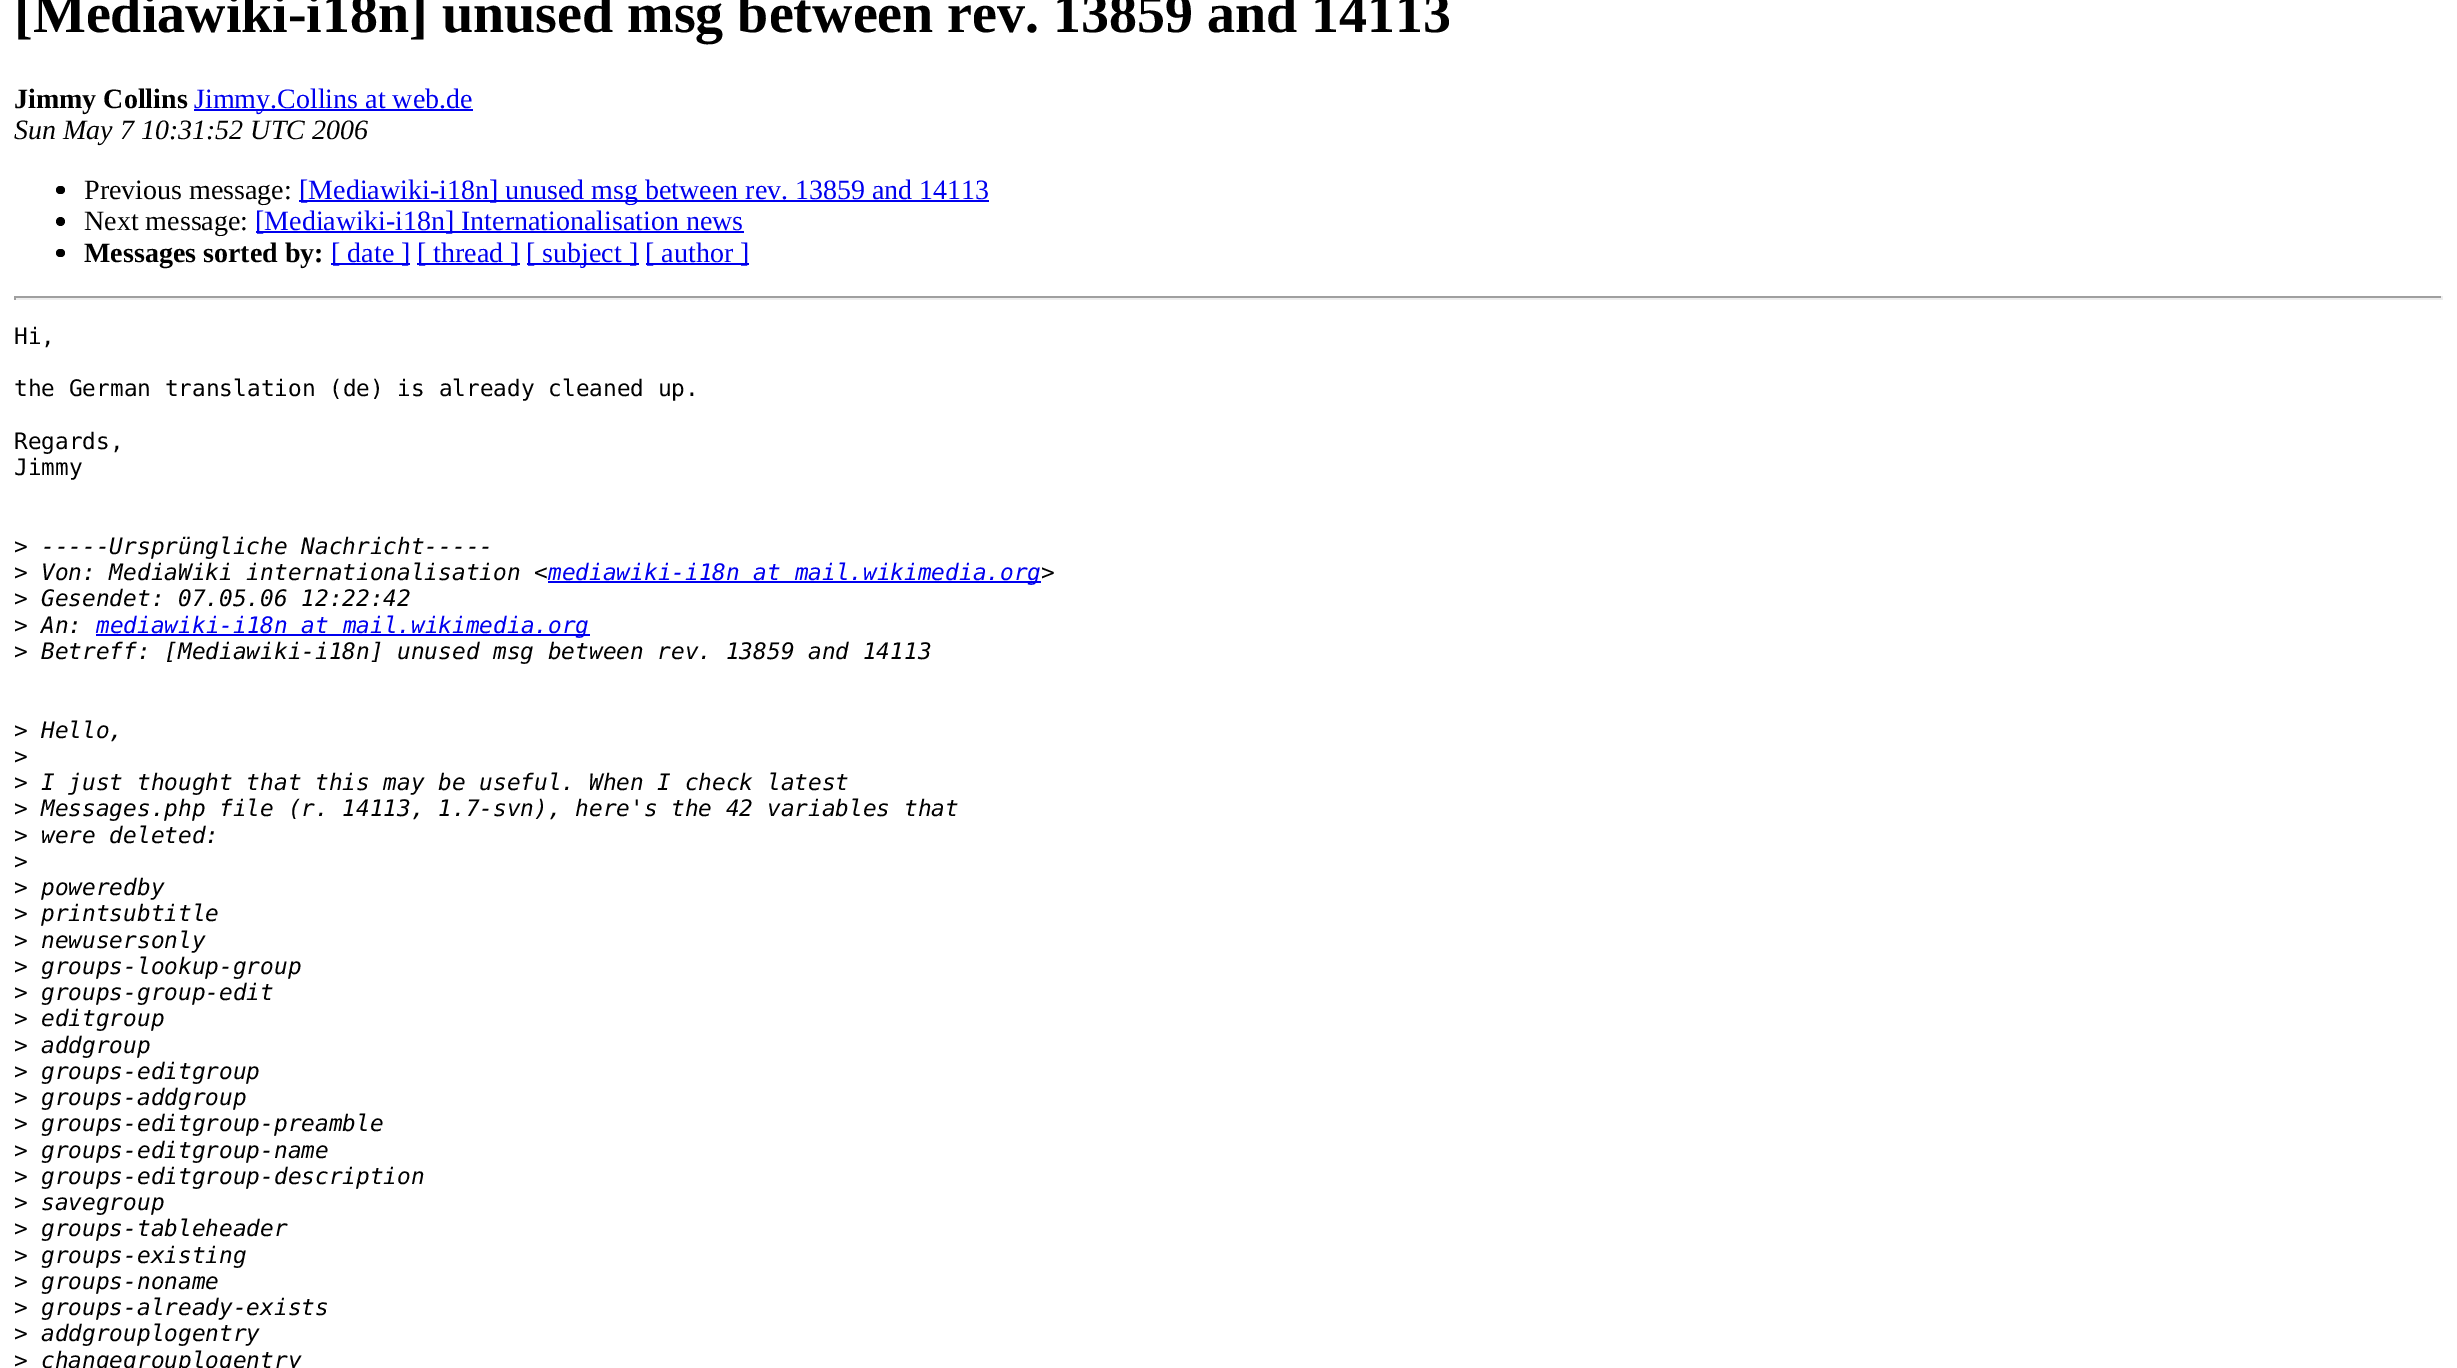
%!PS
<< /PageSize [2457 1368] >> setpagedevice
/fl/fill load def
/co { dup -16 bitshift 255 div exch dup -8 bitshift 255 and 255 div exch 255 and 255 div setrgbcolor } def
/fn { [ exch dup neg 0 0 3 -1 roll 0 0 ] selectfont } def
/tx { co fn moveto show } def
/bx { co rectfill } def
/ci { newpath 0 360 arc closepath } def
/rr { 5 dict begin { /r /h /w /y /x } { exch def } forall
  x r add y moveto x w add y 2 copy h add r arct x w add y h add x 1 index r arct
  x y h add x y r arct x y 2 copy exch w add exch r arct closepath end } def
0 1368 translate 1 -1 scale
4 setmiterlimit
0 0 2457 1368 16#FFFFFF bx
194 109 279 2 16#0000EE bx
16#000000 co
56 186 9 8 4 rr fl
299 200 690 2 16#0000EE bx
16#000000 co
60.5 221.5 4.5 ci fl
256 231 488 2 16#0000EE bx
16#000000 co
56 249 9 8 4 rr fl
331 263 79 2 16#0000EE bx
417 263 103 2 16#0000EE bx
527 263 112 2 16#0000EE bx
646 263 103 2 16#0000EE bx
14 296 2429 2 16#9F9F9F bx
2441 296 2 4 16#EEEEEE bx
14 298 2429 2 16#EEEEEE bx
14 296 2 4 16#9F9F9F bx
548 581 493 2 16#0000EE bx
96 634 494 2 16#0000EE bx
([Mediawiki-i18n] unused msg between rev. 13859 and 14113) 14 32 /LiberationSerif-Bold 56 16#000000 tx
(Jimmy Collins) 14 108 /LiberationSerif-Bold 28 16#000000 tx
(Jimmy.Collins at web.de) 194 108 /LiberationSerif-Regular 28 16#0000EE tx
(Sun May 7 10:31:52 UTC 2006) 14 139 /LiberationSerif-Italic 28 16#000000 tx
(Previous message:) 84 199 /LiberationSerif-Regular 28 16#000000 tx
([Mediawiki-i18n] unused msg between rev. 13859 and 14113) 299 199 /LiberationSerif-Regular 28 16#0000EE tx
(Next message:) 84 230 /LiberationSerif-Regular 28 16#000000 tx
([Mediawiki-i18n] Internationalisation news) 255 230 /LiberationSerif-Regular 28 16#0000EE tx
(Messages sorted by:) 84 262 /LiberationSerif-Bold 28 16#000000 tx
([ date ]) 331 262 /LiberationSerif-Regular 28 16#0000EE tx
([ thread ]) 417 262 /LiberationSerif-Regular 28 16#0000EE tx
([ subject ]) 526 262 /LiberationSerif-Regular 28 16#0000EE tx
([ author ]) 645 262 /LiberationSerif-Regular 28 16#0000EE tx
(Hi,) 14 344 /DejaVuSansMono-Regular 22.75 16#000000 tx
(the German translation \(de\) is already cleaned up.) 14 396 /DejaVuSansMono-Regular 22.75 16#000000 tx
(Regards,) 14 449 /DejaVuSansMono-Regular 22.75 16#000000 tx
(Jimmy) 14 475 /DejaVuSansMono-Regular 22.75 16#000000 tx
(>) 14 554 /DejaVuSansMono-Regular 22.75 16#000000 tx
(-----Ursprüngliche Nachricht-----) 41 554 /DejaVuSansMono-Italic 22.75 16#000000 tx
(>) 14 580 /DejaVuSansMono-Regular 22.75 16#000000 tx
(Von: MediaWiki internationalisation <) 41 580 /DejaVuSansMono-Italic 22.75 16#000000 tx
(mediawiki-i18n at mail.wikimedia.org) 548 580 /DejaVuSansMono-Italic 22.75 16#0000EE tx
(>) 1041 580 /DejaVuSansMono-Italic 22.75 16#000000 tx
(>) 14 606 /DejaVuSansMono-Regular 22.75 16#000000 tx
(Gesendet: 07.05.06 12:22:42) 41 606 /DejaVuSansMono-Italic 22.75 16#000000 tx
(>) 14 633 /DejaVuSansMono-Regular 22.75 16#000000 tx
(An:) 41 633 /DejaVuSansMono-Italic 22.75 16#000000 tx
(mediawiki-i18n at mail.wikimedia.org) 96 633 /DejaVuSansMono-Italic 22.75 16#0000EE tx
(>) 14 659 /DejaVuSansMono-Regular 22.75 16#000000 tx
(Betreff: [Mediawiki-i18n] unused msg between rev. 13859 and 14113) 41 659 /DejaVuSansMono-Italic 22.75 16#000000 tx
(>) 14 738 /DejaVuSansMono-Regular 22.75 16#000000 tx
(Hello,) 41 738 /DejaVuSansMono-Italic 22.75 16#000000 tx
(>) 14 764 /DejaVuSansMono-Regular 22.75 16#000000 tx
(>) 14 790 /DejaVuSansMono-Regular 22.75 16#000000 tx
(I just thought that this may be useful. When I check latest) 41 790 /DejaVuSansMono-Italic 22.75 16#000000 tx
(>) 14 816 /DejaVuSansMono-Regular 22.75 16#000000 tx
(Messages.php file \(r. 14113, 1.7-svn\), here's the 42 variables that) 41 816 /DejaVuSansMono-Italic 22.75 16#000000 tx
(>) 14 843 /DejaVuSansMono-Regular 22.75 16#000000 tx
(were deleted:) 41 843 /DejaVuSansMono-Italic 22.75 16#000000 tx
(>) 14 869 /DejaVuSansMono-Regular 22.75 16#000000 tx
(>) 14 895 /DejaVuSansMono-Regular 22.75 16#000000 tx
(poweredby) 41 895 /DejaVuSansMono-Italic 22.75 16#000000 tx
(>) 14 921 /DejaVuSansMono-Regular 22.75 16#000000 tx
(printsubtitle) 41 921 /DejaVuSansMono-Italic 22.75 16#000000 tx
(>) 14 948 /DejaVuSansMono-Regular 22.75 16#000000 tx
(newusersonly) 41 948 /DejaVuSansMono-Italic 22.75 16#000000 tx
(>) 14 974 /DejaVuSansMono-Regular 22.75 16#000000 tx
(groups-lookup-group) 41 974 /DejaVuSansMono-Italic 22.75 16#000000 tx
(>) 14 1000 /DejaVuSansMono-Regular 22.75 16#000000 tx
(groups-group-edit) 41 1000 /DejaVuSansMono-Italic 22.75 16#000000 tx
(>) 14 1026 /DejaVuSansMono-Regular 22.75 16#000000 tx
(editgroup) 41 1026 /DejaVuSansMono-Italic 22.75 16#000000 tx
(>) 14 1053 /DejaVuSansMono-Regular 22.75 16#000000 tx
(addgroup) 41 1053 /DejaVuSansMono-Italic 22.75 16#000000 tx
(>) 14 1079 /DejaVuSansMono-Regular 22.75 16#000000 tx
(groups-editgroup) 41 1079 /DejaVuSansMono-Italic 22.75 16#000000 tx
(>) 14 1105 /DejaVuSansMono-Regular 22.75 16#000000 tx
(groups-addgroup) 41 1105 /DejaVuSansMono-Italic 22.75 16#000000 tx
(>) 14 1131 /DejaVuSansMono-Regular 22.75 16#000000 tx
(groups-editgroup-preamble) 41 1131 /DejaVuSansMono-Italic 22.75 16#000000 tx
(>) 14 1158 /DejaVuSansMono-Regular 22.75 16#000000 tx
(groups-editgroup-name) 41 1158 /DejaVuSansMono-Italic 22.75 16#000000 tx
(>) 14 1184 /DejaVuSansMono-Regular 22.75 16#000000 tx
(groups-editgroup-description) 41 1184 /DejaVuSansMono-Italic 22.75 16#000000 tx
(>) 14 1210 /DejaVuSansMono-Regular 22.75 16#000000 tx
(savegroup) 41 1210 /DejaVuSansMono-Italic 22.75 16#000000 tx
(>) 14 1236 /DejaVuSansMono-Regular 22.75 16#000000 tx
(groups-tableheader) 41 1236 /DejaVuSansMono-Italic 22.75 16#000000 tx
(>) 14 1263 /DejaVuSansMono-Regular 22.75 16#000000 tx
(groups-existing) 41 1263 /DejaVuSansMono-Italic 22.75 16#000000 tx
(>) 14 1289 /DejaVuSansMono-Regular 22.75 16#000000 tx
(groups-noname) 41 1289 /DejaVuSansMono-Italic 22.75 16#000000 tx
(>) 14 1315 /DejaVuSansMono-Regular 22.75 16#000000 tx
(groups-already-exists) 41 1315 /DejaVuSansMono-Italic 22.75 16#000000 tx
(>) 14 1341 /DejaVuSansMono-Regular 22.75 16#000000 tx
(addgrouplogentry) 41 1341 /DejaVuSansMono-Italic 22.75 16#000000 tx
(>) 14 1368 /DejaVuSansMono-Regular 22.75 16#000000 tx
(changegrouplogentry) 41 1368 /DejaVuSansMono-Italic 22.75 16#000000 tx
showpage
